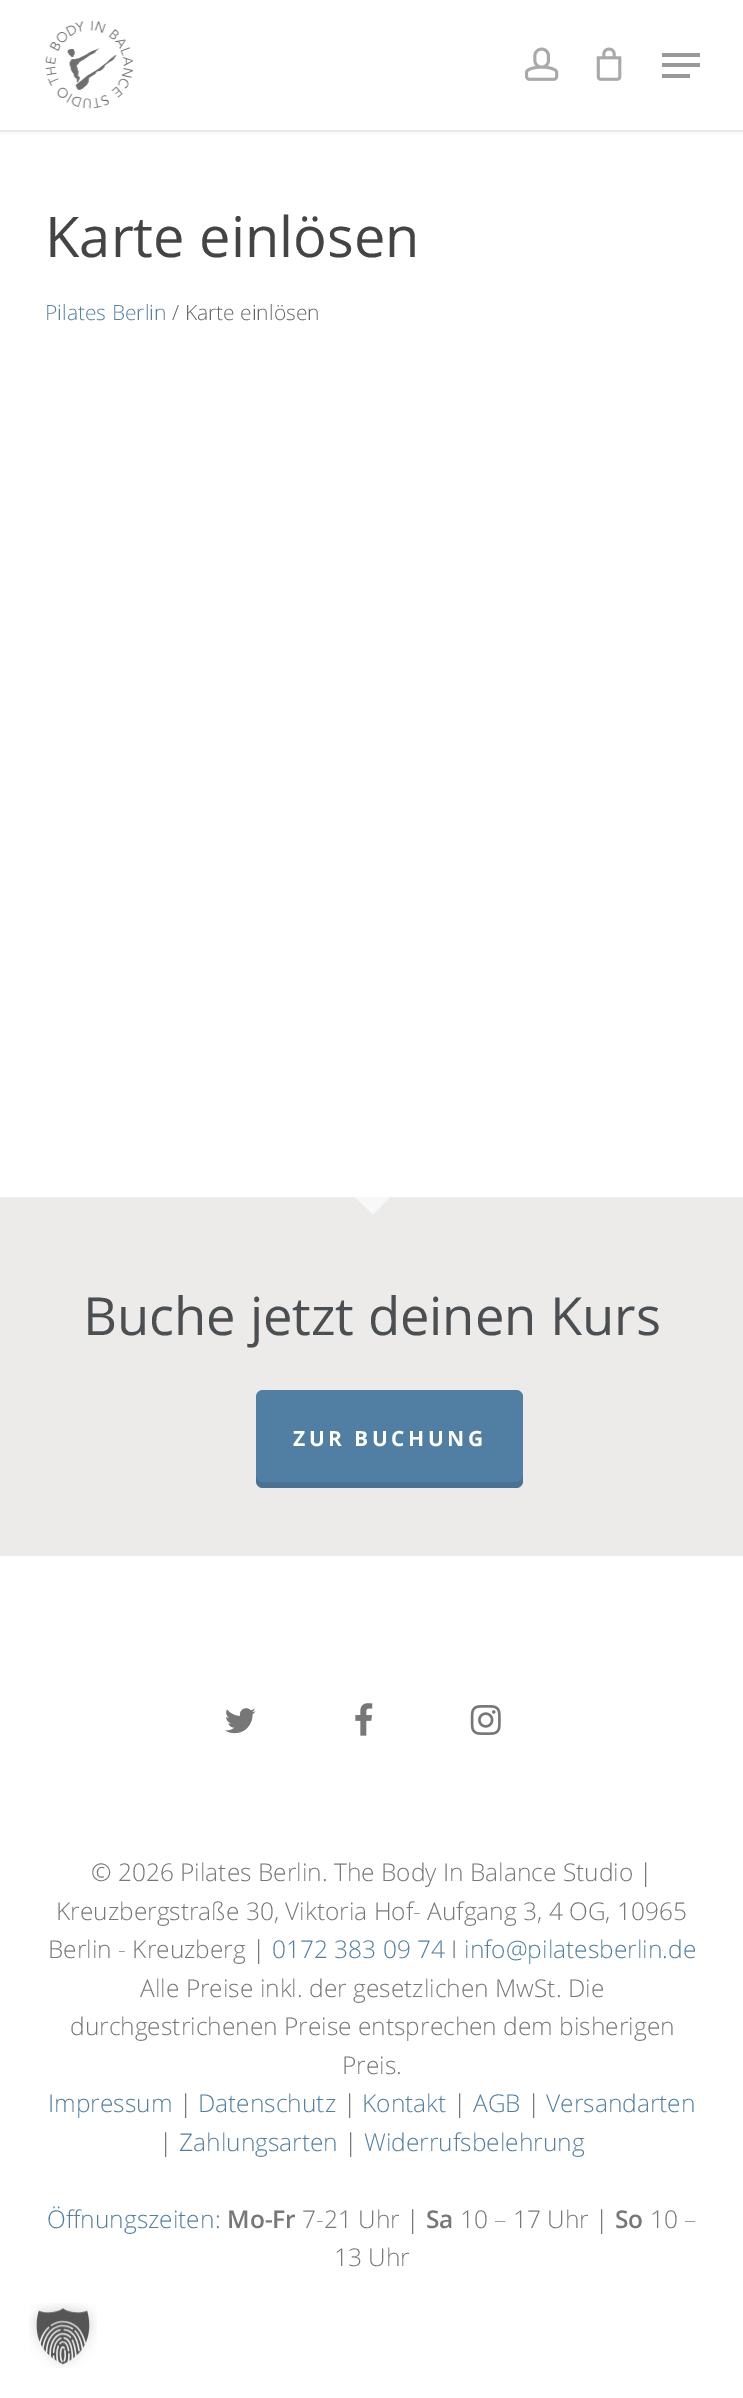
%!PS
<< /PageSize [743 2398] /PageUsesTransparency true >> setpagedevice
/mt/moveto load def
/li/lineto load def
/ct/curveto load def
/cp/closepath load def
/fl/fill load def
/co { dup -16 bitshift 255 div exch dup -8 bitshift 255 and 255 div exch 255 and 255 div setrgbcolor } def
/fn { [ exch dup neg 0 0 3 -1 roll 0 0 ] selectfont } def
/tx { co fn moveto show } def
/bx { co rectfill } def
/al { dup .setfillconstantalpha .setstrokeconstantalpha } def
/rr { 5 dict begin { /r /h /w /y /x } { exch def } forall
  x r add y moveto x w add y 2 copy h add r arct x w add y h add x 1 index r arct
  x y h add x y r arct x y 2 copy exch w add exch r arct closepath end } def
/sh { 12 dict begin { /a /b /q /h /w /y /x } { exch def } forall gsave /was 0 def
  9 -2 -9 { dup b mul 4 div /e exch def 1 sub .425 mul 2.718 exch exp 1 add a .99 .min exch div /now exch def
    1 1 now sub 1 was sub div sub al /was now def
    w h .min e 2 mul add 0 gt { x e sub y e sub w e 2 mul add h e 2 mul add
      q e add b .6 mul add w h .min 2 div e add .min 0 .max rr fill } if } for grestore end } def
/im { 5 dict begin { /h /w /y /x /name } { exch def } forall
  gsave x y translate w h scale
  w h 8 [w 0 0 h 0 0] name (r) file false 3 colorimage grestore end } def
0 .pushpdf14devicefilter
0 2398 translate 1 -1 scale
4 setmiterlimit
0 0 743 2398 16#FFFFFF bx
16#000000 co
0 0 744 130 0 2.5 .22 sh
0 0 743 130 16#FFFFFF bx
(media/1.raw) 45 21 88 88 im
(media/2.raw) 525 47 34 34 im
(media/3.raw) 596 47 26 34 im
662 53 38 4 16#999999 bx
662 74 28 4 16#999999 bx
662 63 38 4 16#999999 bx
0 1197 743 359 16#ECEBE9 bx
16#F8F8F8 co
355 1197 mt 390 1197 li 373 1214.5 li cp fl
16#517FA4 co
256 1390 267 98 7 rr fl
0.1 al
16#000000 co
256 1475 mt 256 1481 li 256 1485 259 1488 263 1488 ct 516 1488 li 520 1488 523 1485 523 1481 ct 523 1475 li 523 1479 520 1482 516 1482 ct 262 1482 li 259 1482 256 1479 256 1475 ct cp fl
1 al
(media/4.raw) 225 1708 31 26 im
(media/5.raw) 355 1703 18 33 im
(media/6.raw) 470 1705 31 30 im
(media/7.raw) 29 2303 68 65 im
(Karte einlösen) 45 257 /OpenSans-Regular 56 16#444444 tx
(Pilates Berlin) 45 320 /OpenSans-Light 21 16#517FA4 tx
(/ Karte einlösen) 172 320 /OpenSans-Light 21 16#676767 tx
(Buche jetzt deinen Kurs) 83 1335 /OpenSans-Regular 52.5 16#4B4F52 tx
/OpenSans-Bold 21 fn
16#FFFFFF co
293 1446 mt 3.5 0 (ZUR BUCHUNG) ashow
(© 2026 Pilates Berlin. The Body In Balance Studio |) 91 1881 /OpenSans-Light 24.5 16#777777 tx
(Kreuzbergstraße 30, Viktoria Hof- Aufgang 3, 4 OG, 10965) 56 1920 /OpenSans-Light 24.5 16#777777 tx
(Berlin - Kreuzberg |) 48 1958 /OpenSans-Light 24.5 16#777777 tx
(0172 383 09 74) 272 1958 /OpenSans-Light 24.5 16#517FA4 tx
(I) 451 1958 /OpenSans-Light 24.5 16#777777 tx
(info@pilatesberlin.de) 464 1958 /OpenSans-Light 24.5 16#517FA4 tx
(Alle Preise inkl. der gesetzlichen MwSt. Die) 140 1997 /OpenSans-Light 24.5 16#777777 tx
(durchgestrichenen Preise entsprechen dem bisherigen) 70 2035 /OpenSans-Light 24.5 16#777777 tx
(Preis.) 342 2074 /OpenSans-Light 24.5 16#777777 tx
(Impressum) 48 2112 /OpenSans-Light 24.5 16#517FA4 tx
(|) 179 2112 /OpenSans-Light 24.5 16#777777 tx
(Datenschutz) 198 2112 /OpenSans-Light 24.5 16#517FA4 tx
(|) 343 2112 /OpenSans-Light 24.5 16#777777 tx
(Kontakt) 362 2112 /OpenSans-Light 24.5 16#517FA4 tx
(|) 453 2112 /OpenSans-Light 24.5 16#777777 tx
(AGB) 473 2112 /OpenSans-Light 24.5 16#517FA4 tx
(|) 527 2112 /OpenSans-Light 24.5 16#777777 tx
(Versandarten) 546 2112 /OpenSans-Light 24.5 16#517FA4 tx
(|) 159 2151 /OpenSans-Light 24.5 16#777777 tx
(Zahlungsarten) 179 2151 /OpenSans-Light 24.5 16#517FA4 tx
(|) 344 2151 /OpenSans-Light 24.5 16#777777 tx
(Widerrufsbelehrung) 364 2151 /OpenSans-Light 24.5 16#517FA4 tx
(Öffnungszeiten) 47 2228 /OpenSans-Light 24.5 16#517FA4 tx
(:) 215 2228 /OpenSans-Light 24.5 16#777777 tx
(Mo-Fr) 227 2228 /OpenSans-SemiBold 24.5 16#777777 tx
(7-21 Uhr |) 302 2228 /OpenSans-Light 24.5 16#777777 tx
(Sa) 426 2228 /OpenSans-SemiBold 24.5 16#777777 tx
(10 – 17 Uhr |) 460 2228 /OpenSans-Light 24.5 16#777777 tx
(So) 615 2228 /OpenSans-SemiBold 24.5 16#777777 tx
(10 –) 650 2228 /OpenSans-Light 24.5 16#777777 tx
(13 Uhr) 334 2266 /OpenSans-Light 24.5 16#777777 tx
.poppdf14devicefilter showpage
